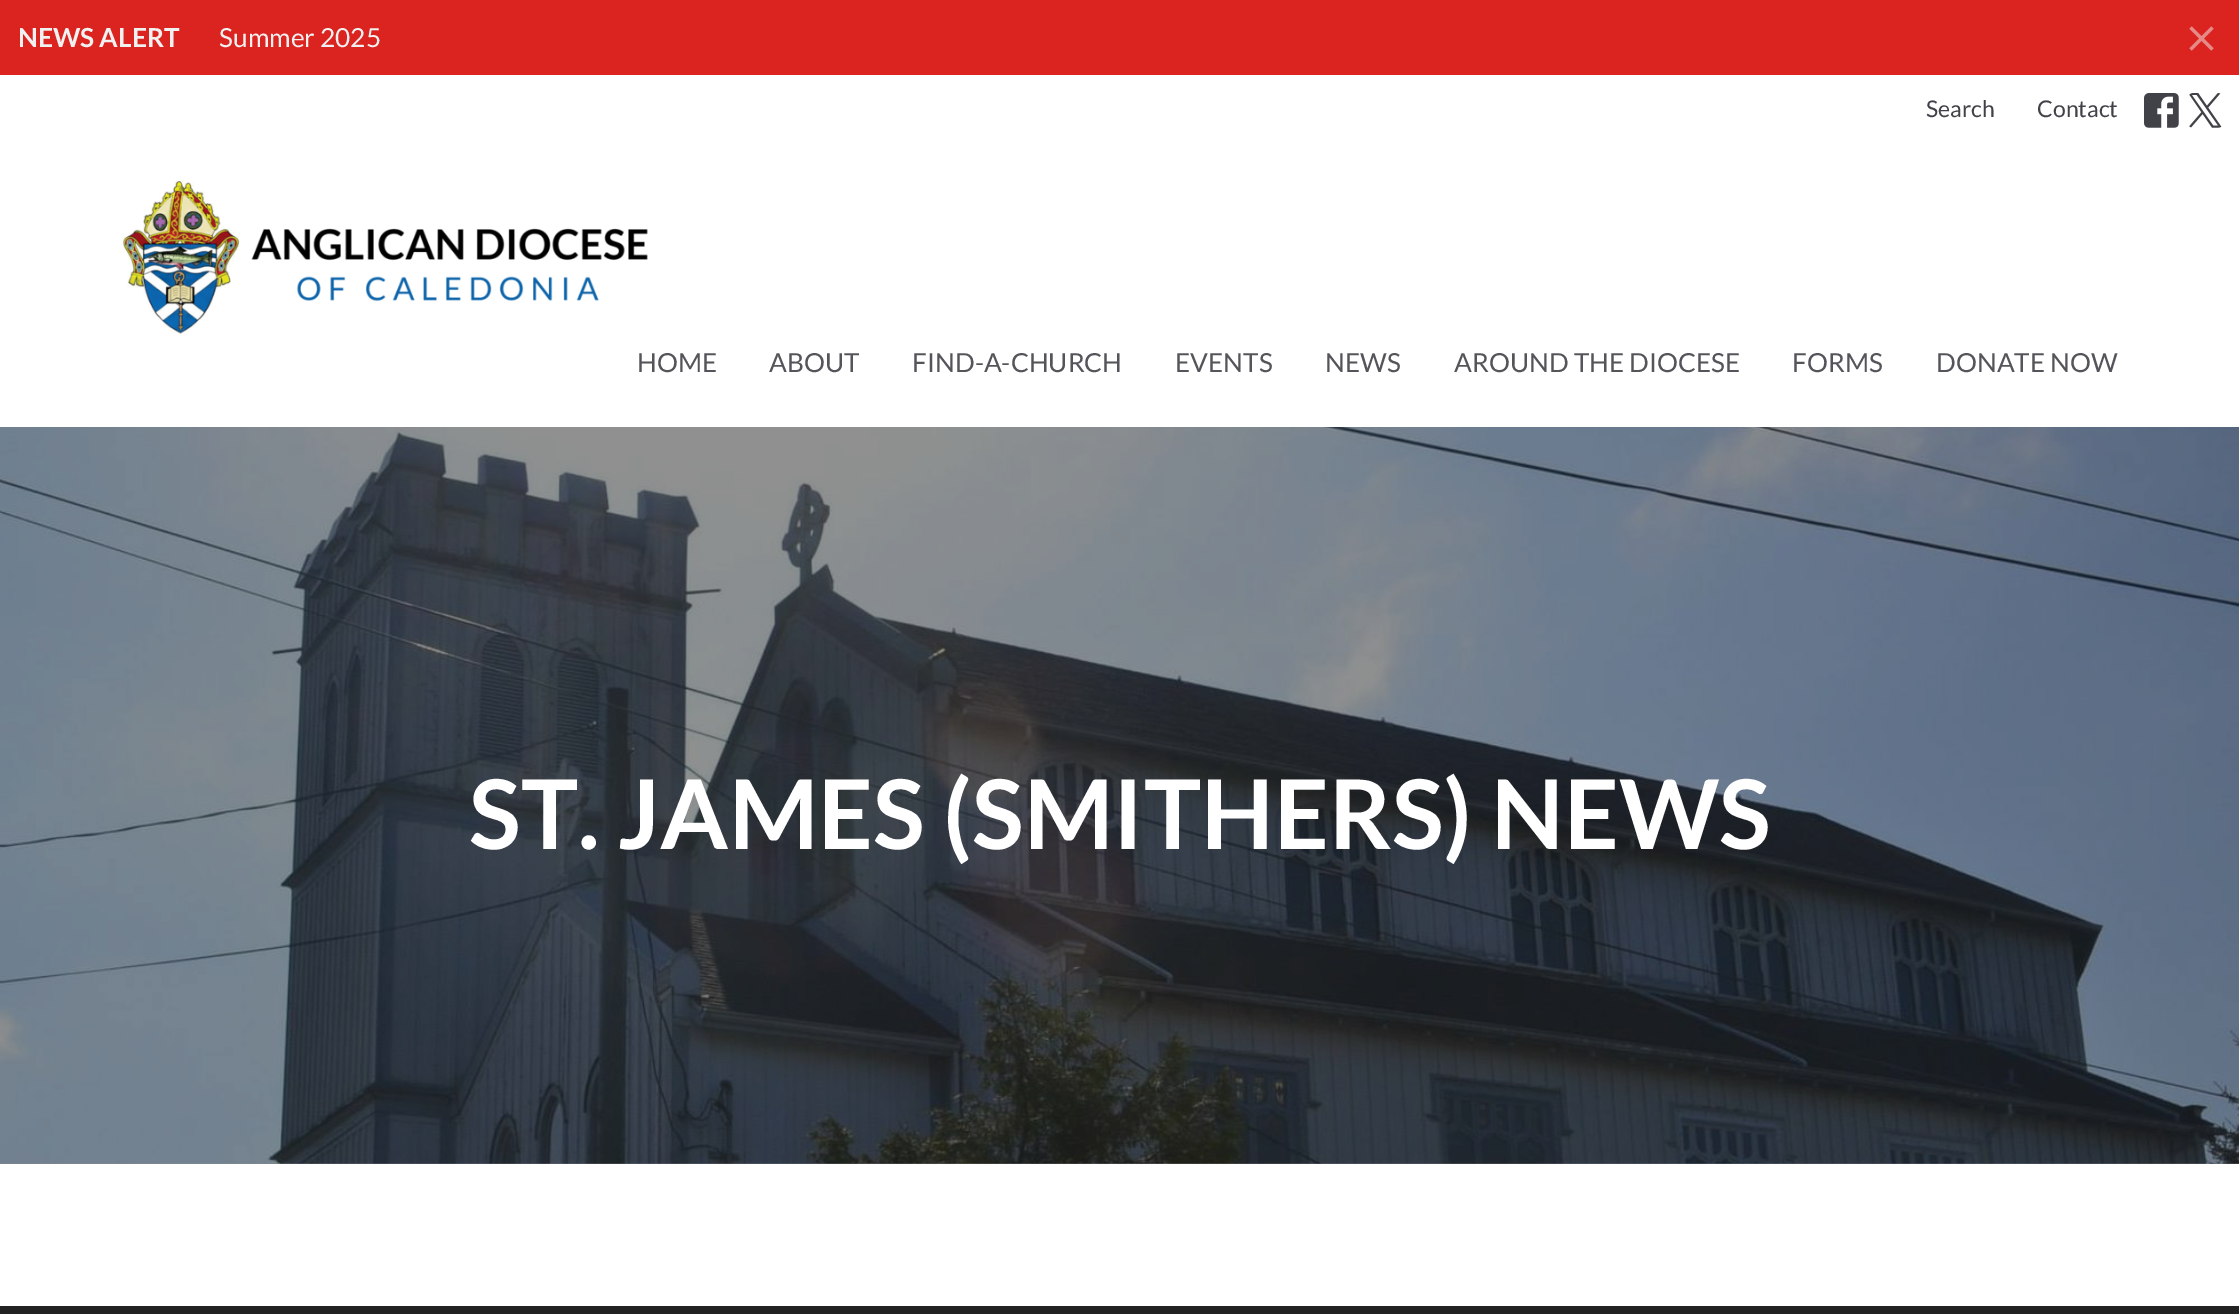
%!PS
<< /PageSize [2239 1314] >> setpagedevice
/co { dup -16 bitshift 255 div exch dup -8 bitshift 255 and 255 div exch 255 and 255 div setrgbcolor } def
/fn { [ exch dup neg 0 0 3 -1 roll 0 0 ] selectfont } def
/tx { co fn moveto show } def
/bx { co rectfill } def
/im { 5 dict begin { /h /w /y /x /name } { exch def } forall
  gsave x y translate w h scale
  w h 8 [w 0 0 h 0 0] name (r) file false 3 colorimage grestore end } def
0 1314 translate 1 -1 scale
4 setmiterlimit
0 0 2239 1314 16#FFFFFF bx
0 0 2239 75 16#DB231F bx
(media/1.raw) 2189 26 25 25 im
(media/2.raw) 2144 93 35 35 im
(media/3.raw) 2189 93 33 35 im
(media/4.raw) 122 180 526 154 im
(media/5.raw) 0 427 2239 737 im
0 1306 2239 8 16#222222 bx
(NEWS ALERT) 18 47 /Lato-Bold 26.25 16#F1F1F1 tx
(Summer 2025) 219 47 /Lato-Regular 26.25 16#F1F1F1 tx
(Search) 1926 117 /Lato-Regular 23 16#414148 tx
(Contact) 2037 117 /Lato-Regular 23 16#414148 tx
(HOME) 637 372 /Lato-Regular 26.25 16#54545A tx
(ABOUT) 769 372 /Lato-Regular 26.25 16#54545A tx
(FIND-A-CHURCH) 912 372 /Lato-Regular 26.25 16#54545A tx
(EVENTS) 1175 372 /Lato-Regular 26.25 16#54545A tx
(NEWS) 1325 372 /Lato-Regular 26.25 16#54545A tx
(AROUND THE DIOCESE) 1454 372 /Lato-Regular 26.25 16#54545A tx
(FORMS) 1792 372 /Lato-Regular 26.25 16#54545A tx
(DONATE NOW) 1936 372 /Lato-Regular 26.25 16#54545A tx
(ST. JAMES \(SMITHERS\) NEWS) 469 849 /Lato-Bold 96.25 16#FFFFFF tx
showpage
